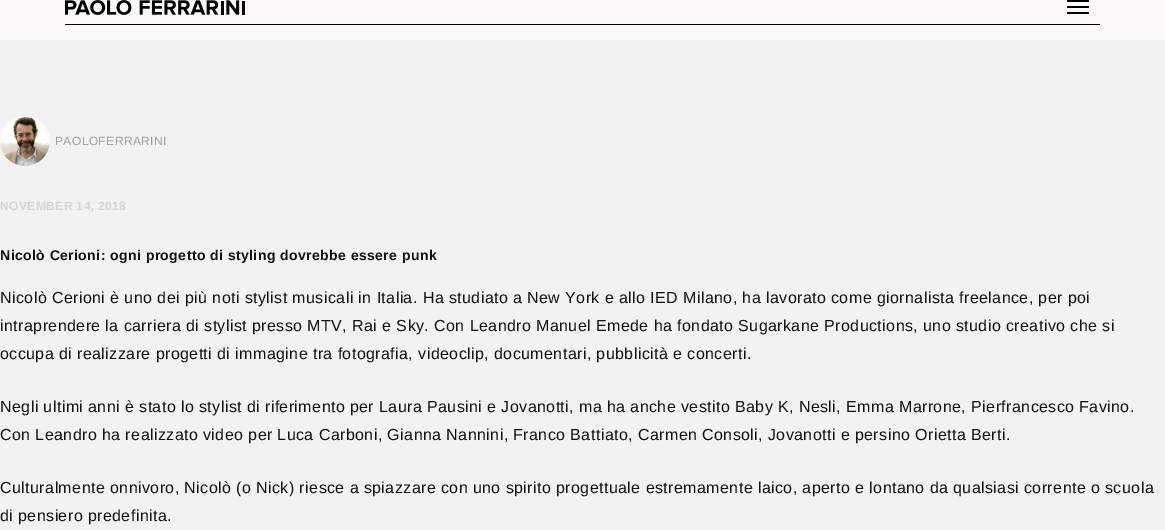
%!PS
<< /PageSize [1165 530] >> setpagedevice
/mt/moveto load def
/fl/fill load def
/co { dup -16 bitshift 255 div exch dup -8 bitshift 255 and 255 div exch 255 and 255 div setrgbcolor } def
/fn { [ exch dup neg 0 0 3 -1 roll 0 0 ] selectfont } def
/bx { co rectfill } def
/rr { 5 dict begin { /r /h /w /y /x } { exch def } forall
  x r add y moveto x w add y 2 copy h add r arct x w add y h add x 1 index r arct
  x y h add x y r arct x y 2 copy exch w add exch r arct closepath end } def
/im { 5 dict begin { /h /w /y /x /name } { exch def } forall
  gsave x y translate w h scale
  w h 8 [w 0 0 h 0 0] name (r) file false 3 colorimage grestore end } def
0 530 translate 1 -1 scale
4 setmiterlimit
0 0 1165 530 16#FCFAF9 bx
65 24 1035 1 16#000000 bx
(media/1.raw) 65 0 180 15 im
1067 0 22 2 1 rr fl
1067 6 22 2 1 rr fl
1067 12 22 2 1 rr fl
0 40 1165 490 16#F2F2F2 bx
(media/2.raw) 0 116 50 50 im
/LiberationSans-Regular 12 fn
16#9F9F9F co
55 145 mt .42 0 (PAOLOFERRARINI) ashow
/LiberationSans-Bold 12 fn
16#D2D2D2 co
0 210 mt .42 0 (NOVEMBER 14, 2018) ashow
/LiberationSans-Bold 14 fn
16#111111 co
0 260 mt .42 0 (Nicolò Cerioni: ogni progetto di styling dovrebbe essere punk) ashow
/LiberationSans-Regular 16 fn
0 303 mt .42 0 (Nicolò Cerioni è uno dei più noti stylist musicali in Italia. Ha studiato a New York e allo IED Milano, ha lavorato come giornalista freelance, per poi) ashow
0 331 mt .42 0 (intraprendere la carriera di stylist presso MTV, Rai e Sky. Con Leandro Manuel Emede ha fondato Sugarkane Productions, uno studio creativo che si) ashow
0 359 mt .42 0 (occupa di realizzare progetti di immagine tra fotografia, videoclip, documentari, pubblicità e concerti.) ashow
0 412 mt .42 0 (Negli ultimi anni è stato lo stylist di riferimento per Laura Pausini e Jovanotti, ma ha anche vestito Baby K, Nesli, Emma Marrone, Pierfrancesco Favino.) ashow
0 440 mt .42 0 (Con Leandro ha realizzato video per Luca Carboni, Gianna Nannini, Franco Battiato, Carmen Consoli, Jovanotti e persino Orietta Berti.) ashow
0 493 mt .42 0 (Culturalmente onnivoro, Nicolò \(o Nick\) riesce a spiazzare con uno spirito progettuale estremamente laico, aperto e lontano da qualsiasi corrente o scuola) ashow
0 521 mt .42 0 (di pensiero predefinita.) ashow
showpage
